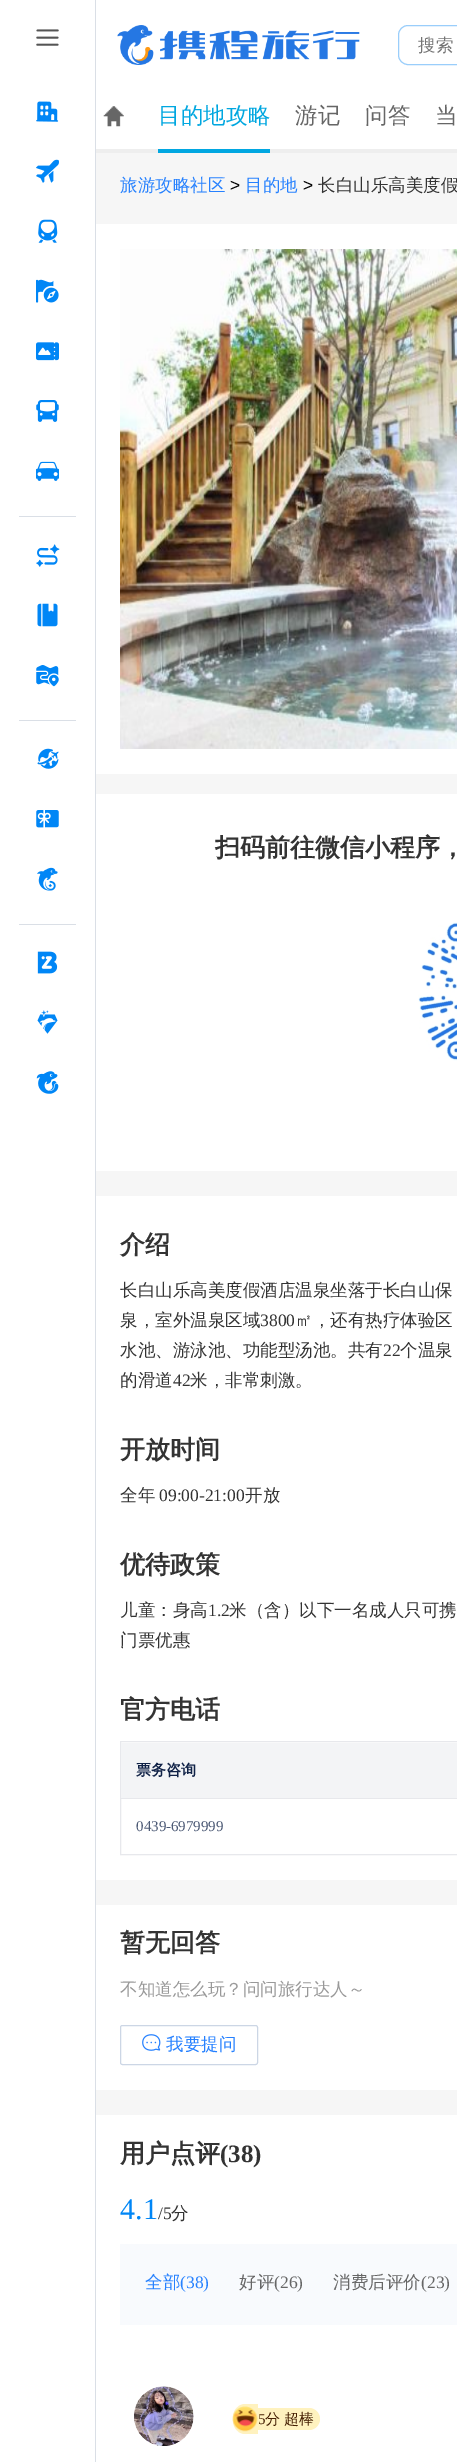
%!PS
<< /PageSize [457 2462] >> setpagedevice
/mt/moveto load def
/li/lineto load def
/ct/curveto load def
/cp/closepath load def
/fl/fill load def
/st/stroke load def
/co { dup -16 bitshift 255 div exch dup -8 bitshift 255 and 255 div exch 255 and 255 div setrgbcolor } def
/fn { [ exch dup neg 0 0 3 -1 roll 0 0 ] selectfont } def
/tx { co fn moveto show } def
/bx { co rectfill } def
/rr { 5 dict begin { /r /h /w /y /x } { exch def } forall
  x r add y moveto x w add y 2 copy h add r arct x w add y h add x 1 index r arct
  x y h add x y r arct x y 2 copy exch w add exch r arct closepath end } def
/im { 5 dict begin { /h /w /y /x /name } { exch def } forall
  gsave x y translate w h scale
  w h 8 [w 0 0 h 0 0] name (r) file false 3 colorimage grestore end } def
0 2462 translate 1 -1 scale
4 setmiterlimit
0 0 457 2462 16#FFFFFF bx
95 149 362 4 16#EEEEEE bx
95 0 1 2462 16#DADFE6 bx
(media/1.raw) 36 29 23 17 im
(media/2.raw) 36 101 23 21 im
(media/3.raw) 36 159 23 24 im
(media/4.raw) 38 219 20 24 im
(media/5.raw) 36 279 23 24 im
(media/6.raw) 36 342 23 19 im
(media/7.raw) 36 400 23 22 im
(media/8.raw) 36 461 23 20 im
19 516 57 1 16#DADFE6 bx
(media/9.raw) 36 544 24 23 im
(media/10.raw) 37 603 21 24 im
(media/11.raw) 36 665 23 22 im
19 720 57 1 16#DADFE6 bx
(media/12.raw) 37 748 22 21 im
(media/13.raw) 36 810 23 18 im
(media/14.raw) 37 867 21 24 im
19 924 57 1 16#DADFE6 bx
(media/15.raw) 37 951 21 23 im
(media/16.raw) 37 1010 21 24 im
(media/17.raw) 36 1071 23 23 im
(media/18.raw) 117 25 243 40 im
16#9ACEFB co
398.5 25.5 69 39 9.5 rr st
(media/19.raw) 103 106 21 21 im
158 149 112 4 16#01A7E1 bx
96 153 361 1962 16#F6F6F6 bx
96 224 361 550 16#FFFFFF bx
(media/20.raw) 120 249 337 500 im
96 794 361 377 16#FFFFFF bx
(media/21.raw) 418 922 39 139 im
96 1196 361 684 16#FFFFFF bx
16#E7E8EC co
120.5 1741.5 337 113 rectstroke
121 1743 336 55 16#F3F4F6 bx
121 1798 336 1 16#E7E8EC bx
96 1905 361 185 16#FFFFFF bx
16#CCD6E5 co
120.5 2025.5 137 39 2 rr st
(media/22.raw) 142 2034 19 17 im
120 2244 337 81 16#F8FAFD bx
(media/23.raw) 134 2386 60 60 im
16#FFF2BF co
245.5 2404 mt 258 2404 li 258 2434 li 245.5 2434 li 238.5 2434 233 2428.5 233 2421.5 ct 233 2416.5 li 233 2409.5 238.5 2404 245.5 2404 ct cp fl
(media/24.raw) 232 2406 26 26 im
258 2408 26 22 16#FFF2BF bx
284 2408 mt 309 2408 li 315 2408 320 2413 320 2419 ct 320 2425 315 2430 309 2430 ct 284 2430 li cp fl
(搜索) 418 51 /WenQuanYiZenHei-Medium 17.5 16#757575 tx
(目的地攻略) 158 123 /WenQuanYiZenHei-Medium 22.5 16#00A7E0 tx
(游记) 295 123 /WenQuanYiZenHei-Medium 22.5 16#666666 tx
(问答) 365 123 /WenQuanYiZenHei-Medium 22.5 16#666666 tx
(当) 435 123 /WenQuanYiZenHei-Medium 22.5 16#666666 tx
(旅游攻略社区) 120 191 /WenQuanYiZenHei-Medium 17.5 16#2681FF tx
(>) 230 191 /LiberationSans-Regular 17.5 16#000000 tx
(目的地) 245 191 /WenQuanYiZenHei-Medium 17.5 16#2681FF tx
(>) 303 191 /LiberationSans-Regular 17.5 16#000000 tx
(长白山乐高美度假) 318 191 /WenQuanYiZenHei-Medium 17.5 16#333333 tx
(扫码前往微信小程序，) 215 856 /WenQuanYiZenHei-Bold 25 16#333333 tx
(介绍) 120 1253 /WenQuanYiZenHei-Bold 25 16#333333 tx
(长白山乐高美度假酒店温泉坐落于长白山保) 120 1296 /WenQuanYiZenHei-Medium 17.5 16#333333 tx
(泉，室外温泉区域) 120 1326 /WenQuanYiZenHei-Medium 17.5 16#333333 tx
(3800) 260 1326 /LiberationSerif-Regular 17.5 16#333333 tx
(㎡，还有热疗体验区) 295 1326 /WenQuanYiZenHei-Medium 17.5 16#333333 tx
(水池、游泳池、功能型汤池。共有) 120 1356 /WenQuanYiZenHei-Medium 17.5 16#333333 tx
(22) 383 1356 /LiberationSerif-Regular 17.5 16#333333 tx
(个温泉) 400 1356 /WenQuanYiZenHei-Medium 17.5 16#333333 tx
(的滑道) 120 1386 /WenQuanYiZenHei-Medium 17.5 16#333333 tx
(42) 173 1386 /LiberationSerif-Regular 17.5 16#333333 tx
(米，非常刺激。) 190 1386 /WenQuanYiZenHei-Medium 17.5 16#333333 tx
(开放时间) 120 1458 /WenQuanYiZenHei-Bold 25 16#333333 tx
(全年) 120 1501 /WenQuanYiZenHei-Medium 17.5 16#333333 tx
(09:00-21:00) 159 1501 /LiberationSerif-Regular 17.5 16#333333 tx
(开放) 245 1501 /WenQuanYiZenHei-Medium 17.5 16#333333 tx
(优待政策) 120 1573 /WenQuanYiZenHei-Bold 25 16#333333 tx
(儿童：身高) 120 1616 /WenQuanYiZenHei-Medium 17.5 16#333333 tx
(1.2) 208 1616 /LiberationSerif-Regular 17.5 16#333333 tx
(米（含）以下一名成人只可携) 229 1616 /WenQuanYiZenHei-Medium 17.5 16#333333 tx
(门票优惠) 120 1646 /WenQuanYiZenHei-Medium 17.5 16#333333 tx
(官方电话) 120 1718 /WenQuanYiZenHei-Bold 25 16#333333 tx
(票务咨询) 136 1775 /WenQuanYiZenHei-Bold 15 16#102247 tx
(0439-6979999) 136 1831 /LiberationSerif-Regular 15 16#4C5A75 tx
(暂无回答) 120 1951 /WenQuanYiZenHei-Bold 25 16#333333 tx
(不知道怎么玩？问问旅行达人～) 120 1995 /WenQuanYiZenHei-Medium 17.5 16#999999 tx
(我要提问) 166 2050 /WenQuanYiZenHei-Medium 17.5 16#2681FF tx
(用户点评) 120 2162 /WenQuanYiZenHei-Bold 25 16#333333 tx
(\(38\)) 220 2162 /LiberationSerif-Bold 25 16#333333 tx
(4.1) 120 2219 /LiberationSerif-Regular 30 16#0086F6 tx
(/5) 158 2219 /LiberationSerif-Regular 17.5 16#333333 tx
(分) 171 2219 /WenQuanYiZenHei-Medium 17.5 16#333333 tx
(全部) 145 2288 /WenQuanYiZenHei-Medium 17.5 16#2681FF tx
(\(38\)) 180 2288 /LiberationSerif-Regular 17.5 16#2681FF tx
(好评) 239 2288 /WenQuanYiZenHei-Medium 17.5 16#666666 tx
(\(26\)) 274 2288 /LiberationSerif-Regular 17.5 16#666666 tx
(消费后评价) 333 2288 /WenQuanYiZenHei-Medium 17.5 16#666666 tx
(\(23\)) 421 2288 /LiberationSerif-Regular 17.5 16#666666 tx
(5) 258 2424 /LiberationSerif-Regular 15 16#462003 tx
(分) 265 2424 /WenQuanYiZenHei-Medium 15 16#462003 tx
(超棒) 284 2424 /WenQuanYiZenHei-Medium 15 16#462003 tx
showpage
